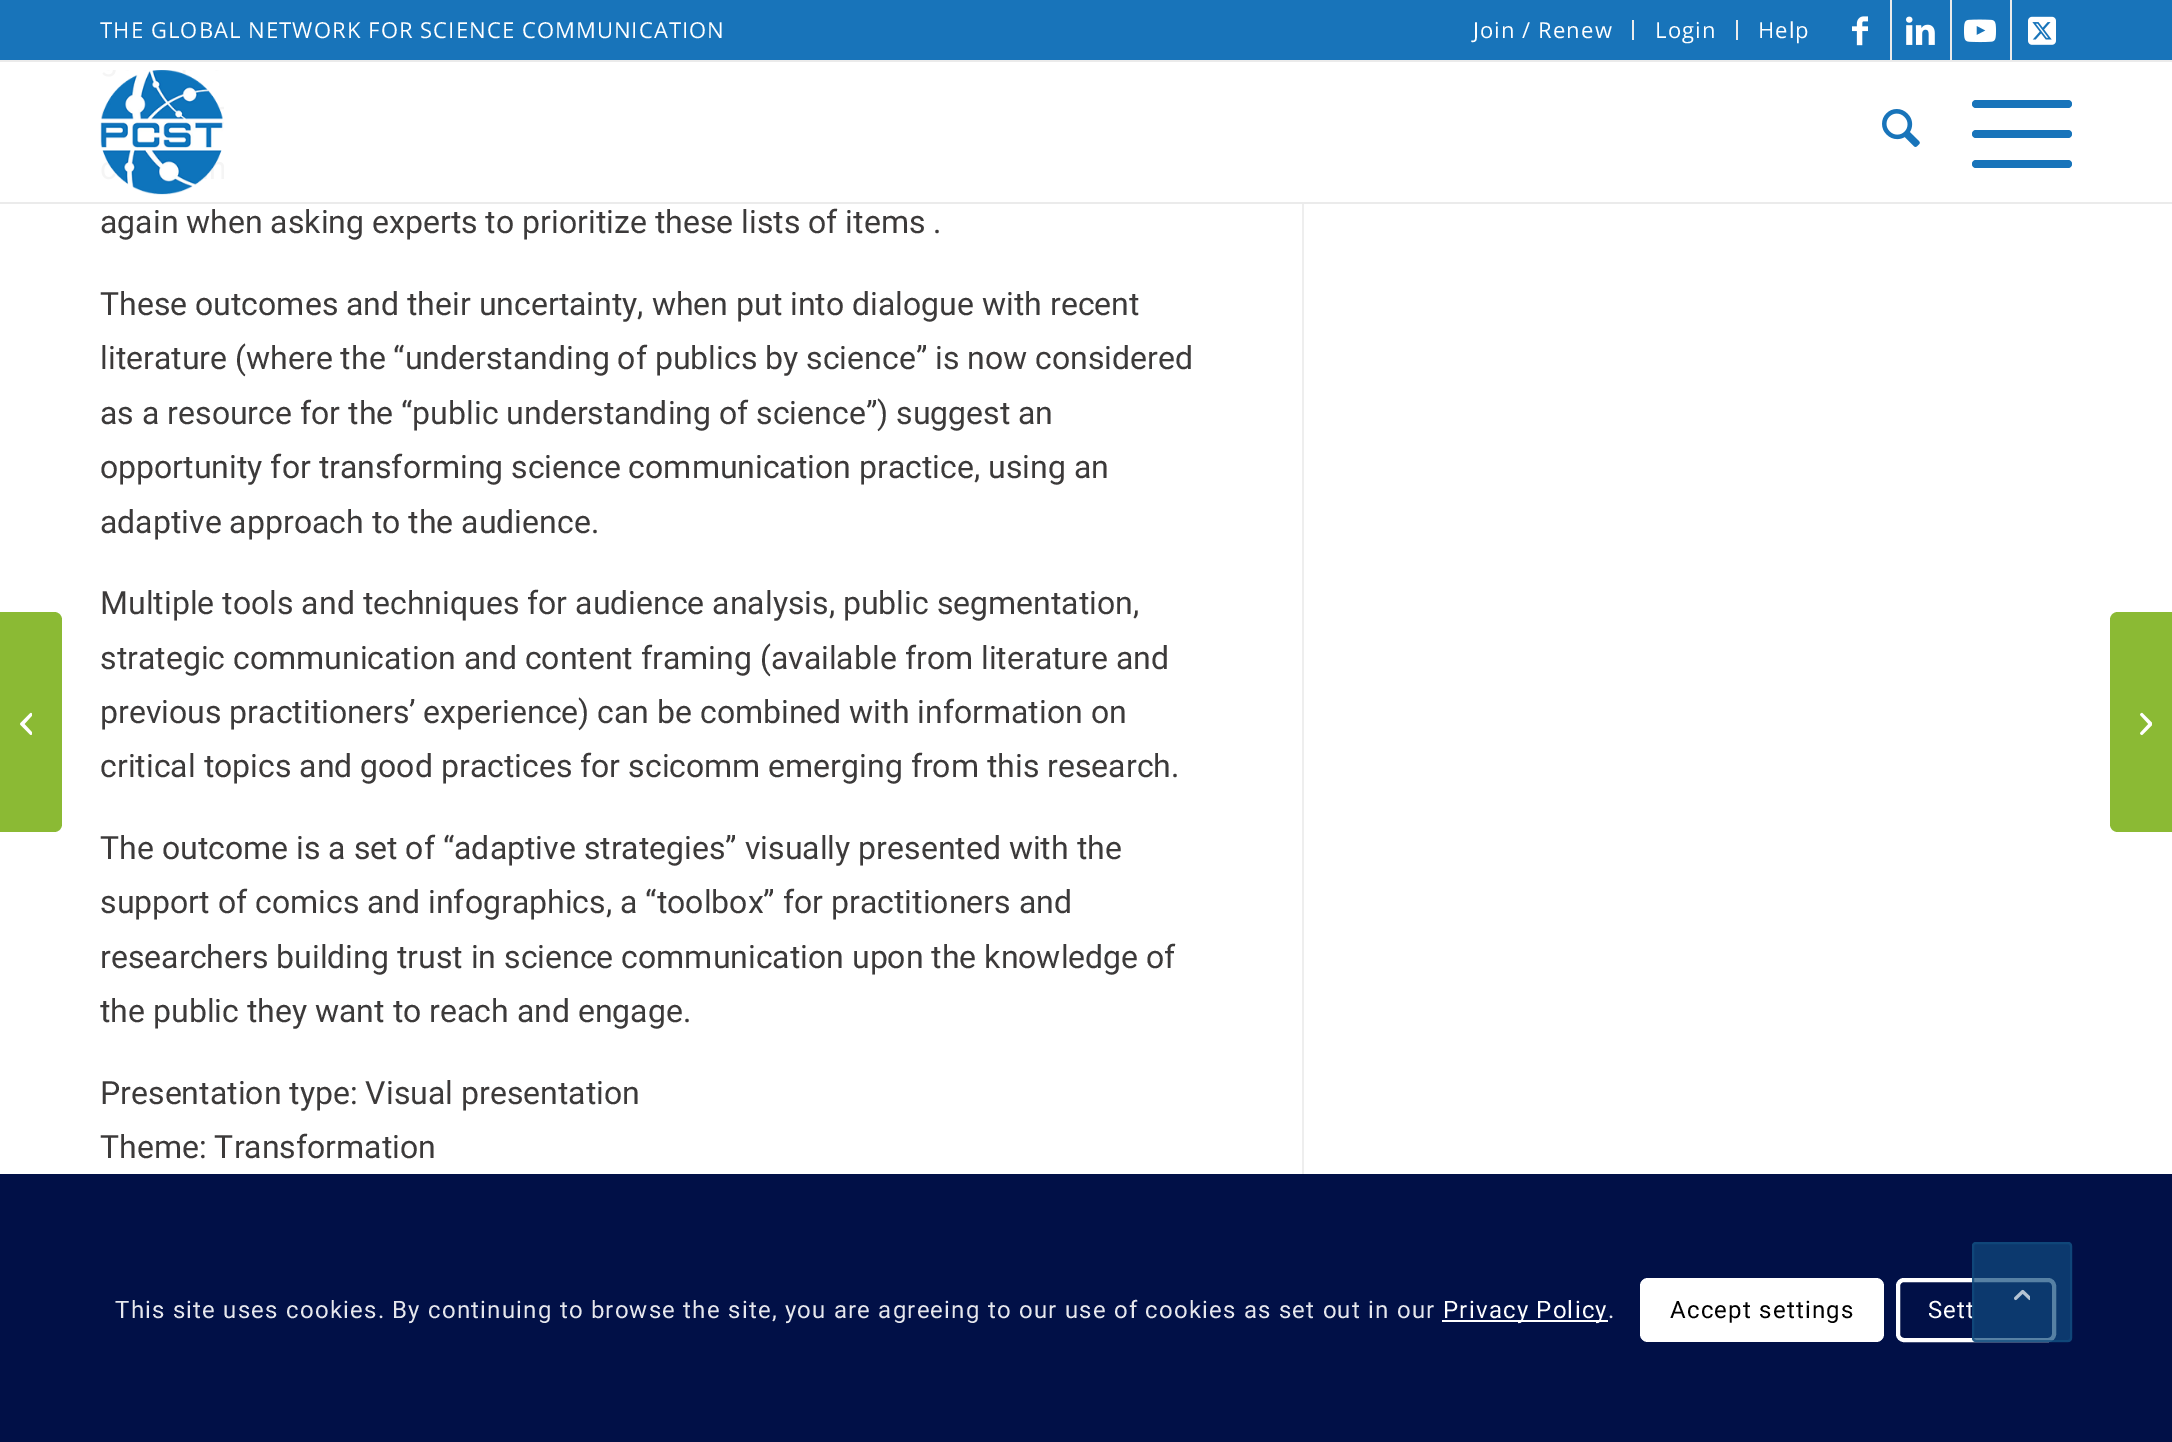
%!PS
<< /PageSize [2172 1442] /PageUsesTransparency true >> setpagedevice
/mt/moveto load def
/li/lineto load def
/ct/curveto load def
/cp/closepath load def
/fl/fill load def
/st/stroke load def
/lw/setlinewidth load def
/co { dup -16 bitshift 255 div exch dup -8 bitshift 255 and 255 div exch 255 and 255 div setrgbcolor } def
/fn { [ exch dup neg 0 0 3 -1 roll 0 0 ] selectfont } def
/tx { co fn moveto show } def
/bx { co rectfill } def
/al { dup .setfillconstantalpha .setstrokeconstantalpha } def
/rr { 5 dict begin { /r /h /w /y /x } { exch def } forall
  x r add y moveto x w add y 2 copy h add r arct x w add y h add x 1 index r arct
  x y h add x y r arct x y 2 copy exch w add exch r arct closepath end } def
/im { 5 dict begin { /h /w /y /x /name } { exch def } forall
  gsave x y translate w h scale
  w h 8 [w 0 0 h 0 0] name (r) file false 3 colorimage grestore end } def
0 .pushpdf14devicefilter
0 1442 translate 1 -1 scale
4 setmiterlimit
0 0 2172 1442 16#FFFFFF bx
0 0 2172 60 16#1874BA bx
0 60 2172 2 16#EBEBEB bx
1632 20 2 20 16#EBEBEB bx
1736 20 2 20 16#EBEBEB bx
1890 0 2 60 16#EBEBEB bx
(media/1.raw) 1852 16 16 30 im
1950 0 2 60 16#EBEBEB bx
(media/2.raw) 1906 16 29 29 im
2010 0 2 60 16#EBEBEB bx
(media/3.raw) 1964 19 32 24 im
(media/4.raw) 2028 16 28 29 im
0 202 2172 2 16#EBEBEB bx
(media/5.raw) 100 70 124 125 im
(media/6.raw) 1882 109 38 38 im
16#1874BA co
1972 130 100 8 4 rr fl
1972 100 100 8 4 rr fl
1972 160 100 8 4 rr fl
16#8BBA34 co
0 612 mt 54 612 li 58.5 612 62 615.5 62 620 ct 62 824 li 62 828.5 58.5 832 54 832 ct 0 832 li cp fl
(media/7.raw) 20 712 12 23 im
1302 204 2 970 16#EEEEEE bx
16#8BBA34 co
2118 612 mt 2172 612 li 2172 832 li 2118 832 li 2113.5 832 2110 828.5 2110 824 ct 2110 620 li 2110 615.5 2113.5 612 2118 612 ct cp fl
(media/8.raw) 2140 712 12 24 im
0 1174 2172 268 16#011047 bx
1442 1320 166 2 16#FFFFFF bx
1640 1278 244 64 8 rr fl
4 lw
1898 1280 156 60 6 rr st
/OpenSans-Regular 22 fn
100 38 mt 1.1 0 (THE GLOBAL NETWORK FOR SCIENCE COMMUNICATION) ashow
1473 38 mt 1.1 0 (Join / Renew) ashow
1655 38 mt 1.1 0 (Login) ashow
1758 38 mt 1.1 0 (Help) ashow
(again when asking experts to prioritize these lists of items .) 100 233 /Roboto-Regular 32 16#3C3A3A tx
(These outcomes and their uncertainty, when put into dialogue with recent) 100 315 /Roboto-Regular 32 16#3C3A3A tx
(literature \(where the “understanding of publics by science” is now considered) 100 369 /Roboto-Regular 32 16#3C3A3A tx
(as a resource for the “public understanding of science”\) suggest an) 100 424 /Roboto-Regular 32 16#3C3A3A tx
(opportunity for transforming science communication practice, using an) 100 478 /Roboto-Regular 32 16#3C3A3A tx
(adaptive approach to the audience.) 100 533 /Roboto-Regular 32 16#3C3A3A tx
(Multiple tools and techniques for audience analysis, public segmentation,) 100 614 /Roboto-Regular 32 16#3C3A3A tx
(strategic communication and content framing \(available from literature and) 100 669 /Roboto-Regular 32 16#3C3A3A tx
(previous practitioners’ experience\) can be combined with information on) 100 723 /Roboto-Regular 32 16#3C3A3A tx
(critical topics and good practices for scicomm emerging from this research.) 100 777 /Roboto-Regular 32 16#3C3A3A tx
(The outcome is a set of “adaptive strategies” visually presented with the) 100 859 /Roboto-Regular 32 16#3C3A3A tx
(support of comics and infographics, a “toolbox” for practitioners and) 100 913 /Roboto-Regular 32 16#3C3A3A tx
(researchers building trust in science communication upon the knowledge of) 100 968 /Roboto-Regular 32 16#3C3A3A tx
(the public they want to reach and engage.) 100 1022 /Roboto-Regular 32 16#3C3A3A tx
(Presentation type: Visual presentation) 100 1104 /Roboto-Regular 32 16#3C3A3A tx
(Theme: Transformation) 100 1158 /Roboto-Regular 32 16#3C3A3A tx
/Roboto-Regular 24 fn
16#E6E7ED co
115 1318 mt 1.2 0 (This site uses cookies. By continuing to browse the site, you are agreeing to our use of cookies as set out in our) ashow
16#FFFFFF co
1443 1318 mt 1.2 0 (Privacy Policy) ashow
16#E6E7ED co
1608 1318 mt 1.2 0 (.) ashow
16#000000 co
1670 1318 mt 1.2 0 (Accept settings) ashow
16#FFFFFF co
1928 1318 mt 1.2 0 (Sett) ashow
0.7 al
16#104B7E co
1972 1242 100 100 4 rr fl
2 lw
1973 1243 98 98 3 rr st
1 al
(media/9.raw) 2014 1289 16 12 im
.poppdf14devicefilter showpage
